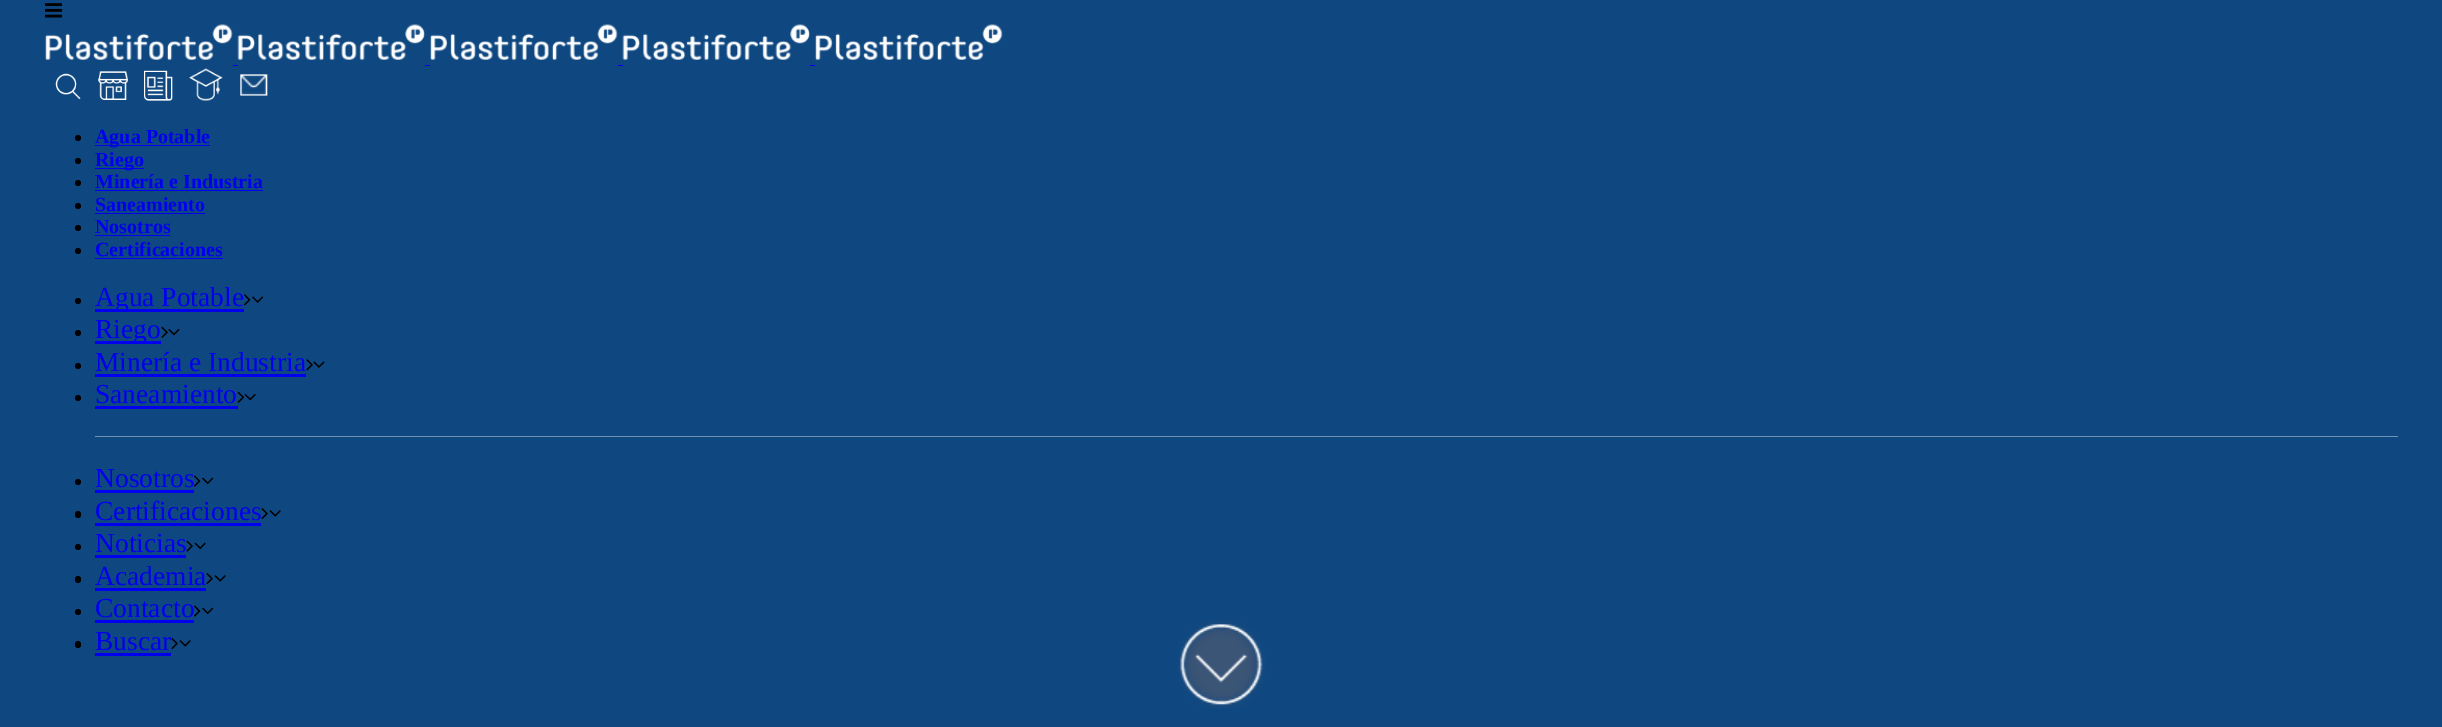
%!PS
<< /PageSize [2442 727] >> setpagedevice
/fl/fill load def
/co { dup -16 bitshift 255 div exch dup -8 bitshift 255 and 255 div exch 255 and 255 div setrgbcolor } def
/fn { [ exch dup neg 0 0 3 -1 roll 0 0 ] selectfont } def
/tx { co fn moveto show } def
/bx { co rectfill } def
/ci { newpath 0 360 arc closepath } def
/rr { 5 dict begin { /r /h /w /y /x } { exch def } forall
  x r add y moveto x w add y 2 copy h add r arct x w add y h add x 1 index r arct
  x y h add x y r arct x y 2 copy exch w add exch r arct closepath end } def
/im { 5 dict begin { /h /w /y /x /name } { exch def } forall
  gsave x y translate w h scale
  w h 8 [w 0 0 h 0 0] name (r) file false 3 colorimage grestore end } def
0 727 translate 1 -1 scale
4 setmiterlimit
0 0 2442 727 16#0F4881 bx
(media/1.raw) 45 3 18 15 im
(media/2.raw) 45 24 188 36 im
(media/3.raw) 237 24 188 36 im
(media/4.raw) 430 24 188 36 im
(media/5.raw) 622 24 188 36 im
(media/2.raw) 815 24 188 36 im
233 65 5 1 16#0000EE bx
425 65 5 1 16#0000EE bx
618 65 5 1 16#0000EE bx
810 65 5 1 16#0000EE bx
(media/6.raw) 55 73 26 27 im
(media/7.raw) 98 71 30 29 im
(media/8.raw) 144 70 29 31 im
(media/9.raw) 189 68 34 33 im
(media/10.raw) 240 74 28 22 im
16#000000 co
78 138 3 ci fl
95 145 115 1 16#0000EE bx
16#000000 co
78 161 3 ci fl
95 168 49 1 16#0000EE bx
16#000000 co
78 183 3 ci fl
95 190 168 1 16#0000EE bx
16#000000 co
78 206 3 ci fl
95 213 110 1 16#0000EE bx
16#000000 co
78 228 3 ci fl
95 235 75 1 16#0000EE bx
16#000000 co
78 251 3 ci fl
95 258 128 1 16#0000EE bx
16#000000 co
78 301 3 ci fl
95 309 149 3 16#0000EE bx
(media/11.raw) 244 294 7 12 im
(media/12.raw) 252 296 12 7 im
16#000000 co
78 333 3 ci fl
95 341 66 3 16#0000EE bx
(media/13.raw) 161 326 7 12 im
(media/14.raw) 168 329 12 7 im
16#000000 co
78 366 3 ci fl
95 374 211 3 16#0000EE bx
(media/15.raw) 306 359 7 12 im
(media/16.raw) 313 361 12 7 im
95 436 2303 1 16#6F91B3 bx
16#000000 co
78 398 3 ci fl
95 406 143 3 16#0000EE bx
(media/17.raw) 237 391 8 12 im
(media/18.raw) 244 394 12 7 im
16#000000 co
78 482 3 ci fl
95 490 99 3 16#0000EE bx
(media/19.raw) 194 475 7 12 im
(media/20.raw) 202 477 12 8 im
16#000000 co
75 511 6 7 3 rr fl
95 523 166 3 16#0000EE bx
(media/21.raw) 261 508 7 12 im
(media/22.raw) 269 510 12 7 im
16#000000 co
78 547 3 ci fl
95 555 91 3 16#0000EE bx
(media/23.raw) 186 540 7 12 im
(media/24.raw) 194 542 12 8 im
16#000000 co
75 576 6 7 3 rr fl
95 588 111 3 16#0000EE bx
(media/22.raw) 214 575 12 7 im
16#000000 co
78 612 3 ci fl
95 620 99 3 16#0000EE bx
(media/19.raw) 194 605 7 12 im
(media/20.raw) 202 607 12 8 im
16#000000 co
75 641 6 7 3 rr fl
95 653 76 3 16#0000EE bx
(media/22.raw) 179 640 12 7 im
(media/27.raw) 1178 620 87 89 im
(Agua Potable) 95 143 /LiberationSerif-Bold 20 16#0000EE tx
(Riego) 95 166 /LiberationSerif-Bold 20 16#0000EE tx
(Minería e Industria) 95 188 /LiberationSerif-Bold 20 16#0000EE tx
(Saneamiento) 95 211 /LiberationSerif-Bold 20 16#0000EE tx
(Nosotros) 95 233 /LiberationSerif-Bold 20 16#0000EE tx
(Certificaciones) 95 256 /LiberationSerif-Bold 20 16#0000EE tx
(Agua Potable) 95 306 /LiberationSerif-Regular 27.5 16#0000EE tx
(Riego) 95 338 /LiberationSerif-Regular 27.5 16#0000EE tx
(Minería e Industria) 95 371 /LiberationSerif-Regular 27.5 16#0000EE tx
(Saneamiento) 95 403 /LiberationSerif-Regular 27.5 16#0000EE tx
(Nosotros) 95 487 /LiberationSerif-Regular 27.5 16#0000EE tx
(Certificaciones) 95 520 /LiberationSerif-Regular 27.5 16#0000EE tx
(Noticias) 95 552 /LiberationSerif-Regular 27.5 16#0000EE tx
(Academia) 95 585 /LiberationSerif-Regular 27.5 16#0000EE tx
(media/25.raw) 206 573 7 12 im
(Contacto) 95 617 /LiberationSerif-Regular 27.5 16#0000EE tx
(Buscar) 95 650 /LiberationSerif-Regular 27.5 16#0000EE tx
(media/26.raw) 171 638 7 12 im
showpage
